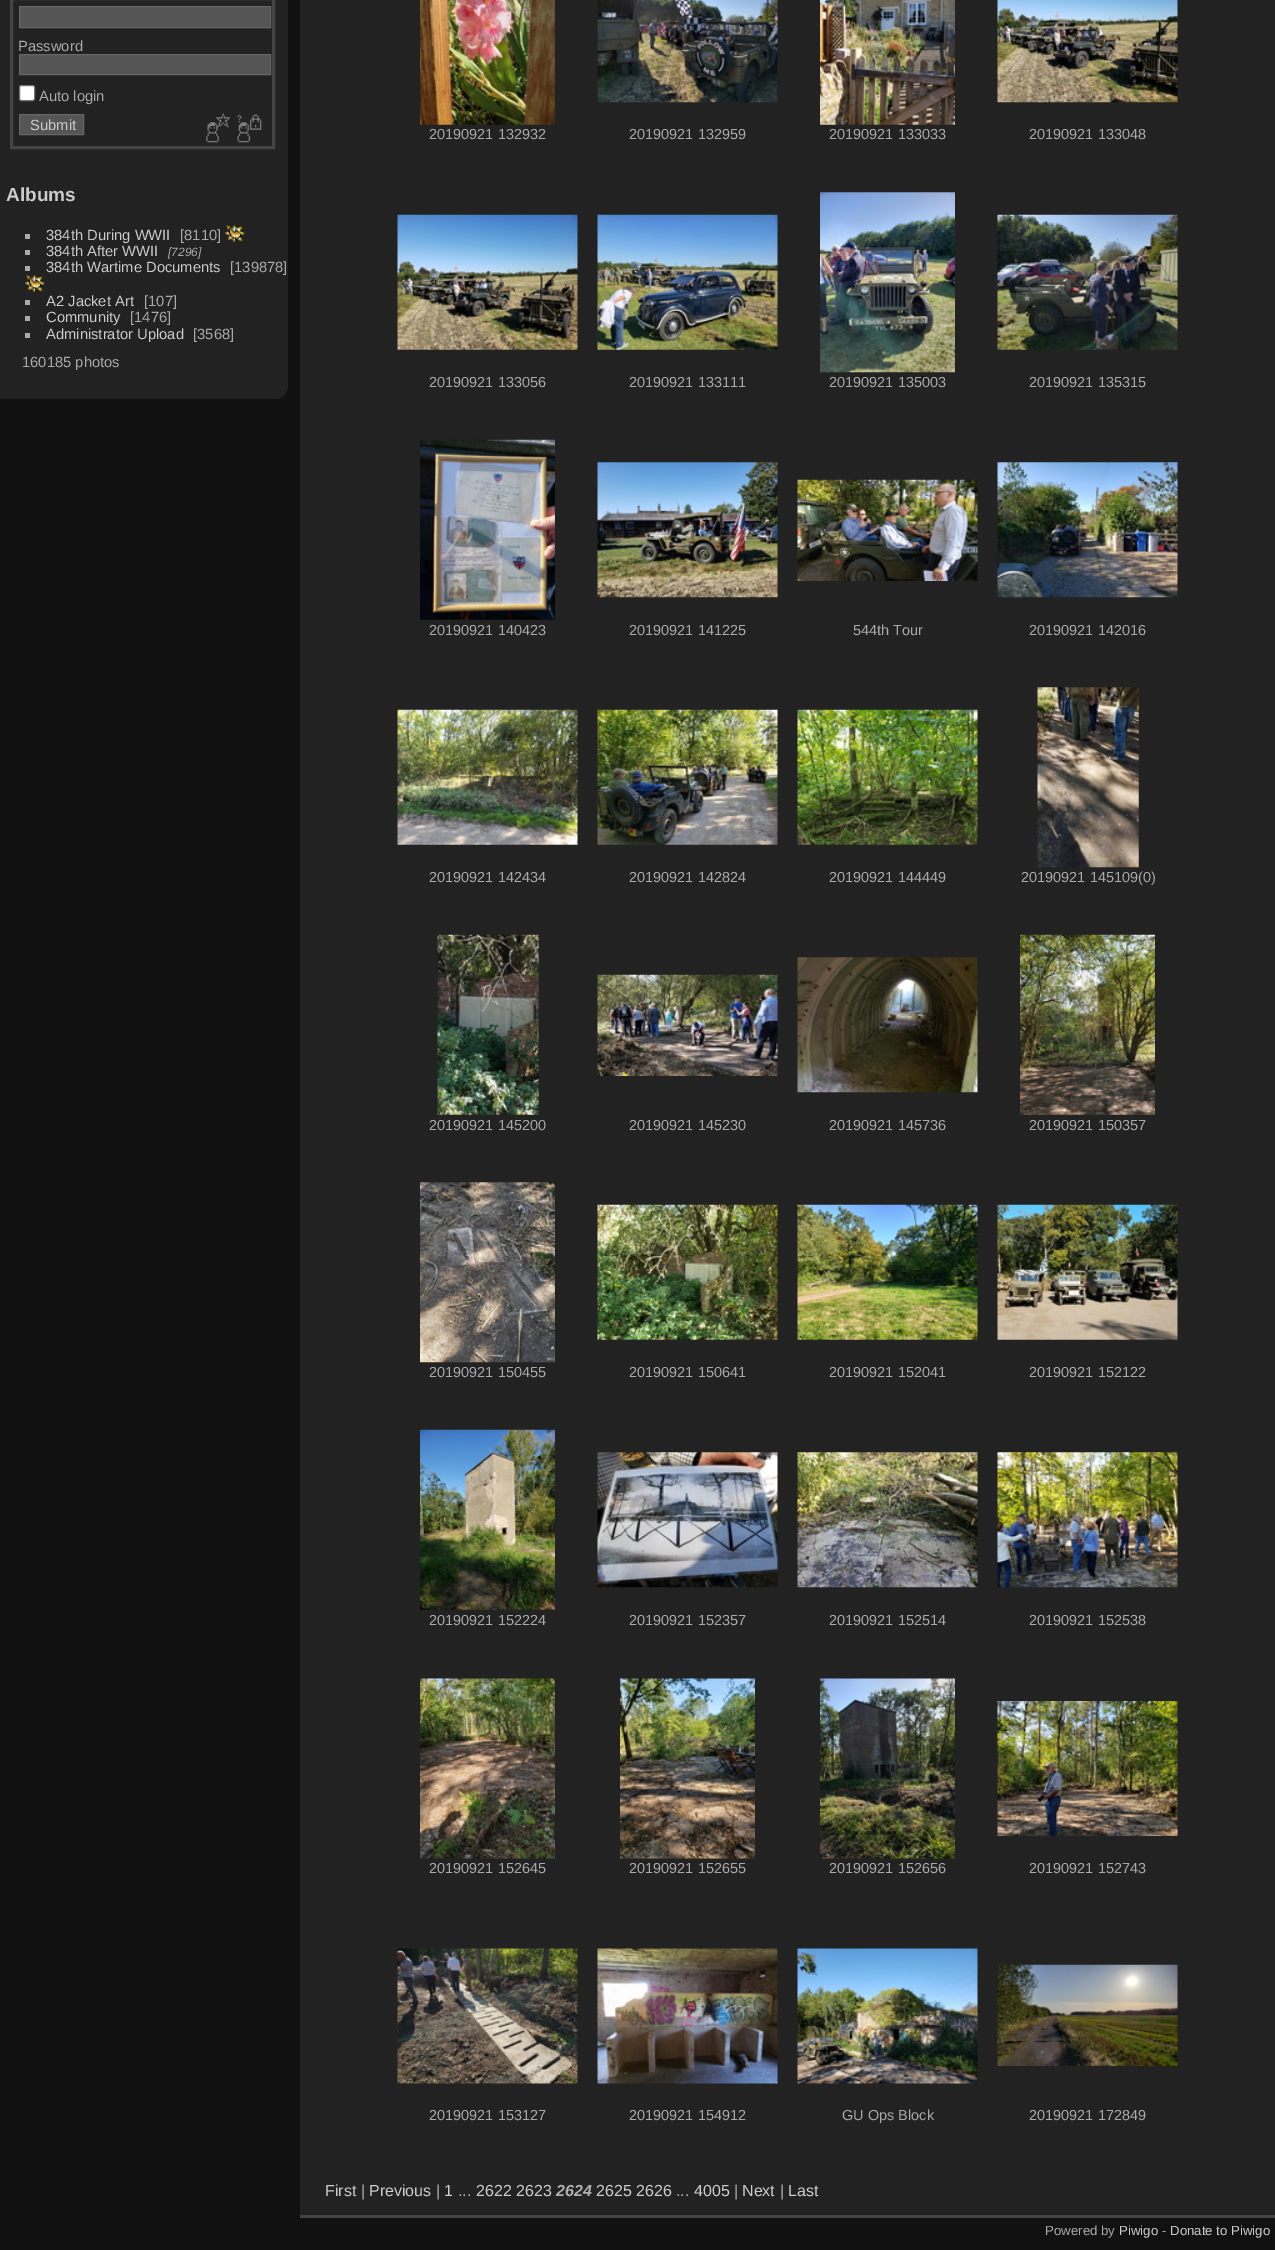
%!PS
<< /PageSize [1275 2250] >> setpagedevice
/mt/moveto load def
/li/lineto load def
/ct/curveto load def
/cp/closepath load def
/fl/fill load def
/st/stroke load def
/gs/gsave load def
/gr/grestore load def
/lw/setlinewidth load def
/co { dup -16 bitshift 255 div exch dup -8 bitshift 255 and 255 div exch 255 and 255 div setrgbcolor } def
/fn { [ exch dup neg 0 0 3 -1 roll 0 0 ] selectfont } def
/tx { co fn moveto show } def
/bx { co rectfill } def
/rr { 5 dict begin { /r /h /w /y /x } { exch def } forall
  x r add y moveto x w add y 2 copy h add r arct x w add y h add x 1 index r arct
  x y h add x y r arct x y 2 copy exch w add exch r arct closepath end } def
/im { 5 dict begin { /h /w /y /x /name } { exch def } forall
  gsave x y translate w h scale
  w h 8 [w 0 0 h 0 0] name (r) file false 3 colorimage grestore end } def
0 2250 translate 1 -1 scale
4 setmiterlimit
0 0 1275 2250 16#111111 bx
16#222222 co
0 -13 mt 275 -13 li 282 -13 288 -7 288 0 ct 288 386 li 288 393 282 399 275 399 ct 0 399 li cp fl
16#444444 co
3 lw
11.5 -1.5 262 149 rectstroke
16#555555 co
19.5 6.5 mt 270.5 6.5 li 270.5 27.5 li 19.5 27.5 li cp gs fl gr
16#666666 co
1 lw
st
16#555555 co
19.5 54.5 mt 270.5 54.5 li 270.5 74.5 li 19.5 74.5 li cp gs fl gr
16#666666 co
st
16#FFFFFF co
19.5 85.5 15 15 2 rr gs fl gr
16#767676 co
st
16#555555 co
19.5 114.5 mt 83.5 114.5 li 83.5 134.5 li 19.5 134.5 li cp gs fl gr
16#666666 co
st
(media/1.raw) 206 113 25 30 im
(media/2.raw) 237 114 25 29 im
25 234 5 5 16#AAAAAA bx
(media/3.raw) 225 224 20 19 im
25 250 5 5 16#AAAAAA bx
25 266 5 5 16#AAAAAA bx
(media/4.raw) 25 274 20 19 im
25 300 5 5 16#AAAAAA bx
25 316 5 5 16#AAAAAA bx
25 333 5 5 16#AAAAAA bx
300 0 975 2215 16#222222 bx
300 2215 975 3 16#444444 bx
(media/5.raw) 420 0 135 125 im
(media/6.raw) 597 0 181 103 im
(media/7.raw) 820 0 135 125 im
(media/8.raw) 997 0 181 103 im
(media/9.raw) 397 214 181 136 im
(media/10.raw) 597 214 181 136 im
(media/11.raw) 820 192 135 181 im
(media/12.raw) 997 214 181 136 im
(media/13.raw) 420 439 135 181 im
(media/14.raw) 597 462 181 136 im
(media/15.raw) 797 479 181 102 im
(media/16.raw) 997 462 181 136 im
(media/17.raw) 397 709 181 136 im
(media/18.raw) 597 709 181 136 im
(media/19.raw) 797 709 181 136 im
(media/20.raw) 1037 687 102 181 im
(media/21.raw) 437 934 102 181 im
(media/22.raw) 597 974 181 102 im
(media/23.raw) 797 957 181 136 im
(media/24.raw) 1020 934 135 181 im
(media/25.raw) 420 1182 135 181 im
(media/26.raw) 597 1204 181 136 im
(media/27.raw) 797 1204 181 136 im
(media/28.raw) 997 1204 181 136 im
(media/29.raw) 420 1429 135 181 im
(media/30.raw) 597 1452 181 136 im
(media/31.raw) 797 1452 181 136 im
(media/32.raw) 997 1452 181 136 im
(media/33.raw) 420 1678 135 181 im
(media/34.raw) 620 1678 135 181 im
(media/35.raw) 820 1678 135 181 im
(media/36.raw) 997 1701 181 135 im
(media/37.raw) 397 1948 181 136 im
(media/38.raw) 597 1948 181 136 im
(media/39.raw) 797 1948 181 136 im
(media/40.raw) 997 1964 181 102 im
(Password) 18 51 /LiberationSans-Regular 14.75 16#AAAAAA tx
(Auto login) 39 101 /LiberationSans-Regular 14.75 16#AAAAAA tx
(Submit) 30 130 /LiberationSans-Regular 14.75 16#CCCCCC tx
(Albums) 6 201 /LiberationSans-Bold 19 16#CCCCCC tx
(384th During WWII) 46 240 /LiberationSans-Regular 14.75 16#CCCCCC tx
([8110]) 180 240 /LiberationSans-Regular 14.75 16#AAAAAA tx
(384th After WWII) 46 256 /LiberationSans-Regular 14.75 16#CCCCCC tx
([7296]) 168 256 /LiberationSans-Italic 12 16#AAAAAA tx
(384th Wartime Documents) 46 272 /LiberationSans-Regular 14.75 16#CCCCCC tx
([139878]) 230 272 /LiberationSans-Regular 14.75 16#AAAAAA tx
(A2 Jacket Art) 46 306 /LiberationSans-Regular 14.75 16#CCCCCC tx
([107]) 144 306 /LiberationSans-Regular 14.75 16#AAAAAA tx
(Community) 46 322 /LiberationSans-Regular 14.75 16#CCCCCC tx
([1476]) 130 322 /LiberationSans-Regular 14.75 16#AAAAAA tx
(Administrator Upload) 46 339 /LiberationSans-Regular 14.75 16#CCCCCC tx
([3568]) 193 339 /LiberationSans-Regular 14.75 16#AAAAAA tx
(160185 photos) 22 367 /LiberationSans-Regular 14.75 16#AAAAAA tx
(20190921 132932) 429 139 /LiberationSans-Regular 14.5 16#AAAAAA tx
(20190921 132959) 629 139 /LiberationSans-Regular 14.5 16#AAAAAA tx
(20190921 133033) 829 139 /LiberationSans-Regular 14.5 16#AAAAAA tx
(20190921 133048) 1029 139 /LiberationSans-Regular 14.5 16#AAAAAA tx
(20190921 133056) 429 387 /LiberationSans-Regular 14.5 16#AAAAAA tx
(20190921 133111) 629 387 /LiberationSans-Regular 14.5 16#AAAAAA tx
(20190921 135003) 829 387 /LiberationSans-Regular 14.5 16#AAAAAA tx
(20190921 135315) 1029 387 /LiberationSans-Regular 14.5 16#AAAAAA tx
(20190921 140423) 429 635 /LiberationSans-Regular 14.5 16#AAAAAA tx
(20190921 141225) 629 635 /LiberationSans-Regular 14.5 16#AAAAAA tx
(544th Tour) 853 635 /LiberationSans-Regular 14.5 16#AAAAAA tx
(20190921 142016) 1029 635 /LiberationSans-Regular 14.5 16#AAAAAA tx
(20190921 142434) 429 882 /LiberationSans-Regular 14.5 16#AAAAAA tx
(20190921 142824) 629 882 /LiberationSans-Regular 14.5 16#AAAAAA tx
(20190921 144449) 829 882 /LiberationSans-Regular 14.5 16#AAAAAA tx
(20190921 145109\(0\)) 1021 882 /LiberationSans-Regular 14.5 16#AAAAAA tx
(20190921 145200) 429 1130 /LiberationSans-Regular 14.5 16#AAAAAA tx
(20190921 145230) 629 1130 /LiberationSans-Regular 14.5 16#AAAAAA tx
(20190921 145736) 829 1130 /LiberationSans-Regular 14.5 16#AAAAAA tx
(20190921 150357) 1029 1130 /LiberationSans-Regular 14.5 16#AAAAAA tx
(20190921 150455) 429 1377 /LiberationSans-Regular 14.5 16#AAAAAA tx
(20190921 150641) 629 1377 /LiberationSans-Regular 14.5 16#AAAAAA tx
(20190921 152041) 829 1377 /LiberationSans-Regular 14.5 16#AAAAAA tx
(20190921 152122) 1029 1377 /LiberationSans-Regular 14.5 16#AAAAAA tx
(20190921 152224) 429 1625 /LiberationSans-Regular 14.5 16#AAAAAA tx
(20190921 152357) 629 1625 /LiberationSans-Regular 14.5 16#AAAAAA tx
(20190921 152514) 829 1625 /LiberationSans-Regular 14.5 16#AAAAAA tx
(20190921 152538) 1029 1625 /LiberationSans-Regular 14.5 16#AAAAAA tx
(20190921 152645) 429 1873 /LiberationSans-Regular 14.5 16#AAAAAA tx
(20190921 152655) 629 1873 /LiberationSans-Regular 14.5 16#AAAAAA tx
(20190921 152656) 829 1873 /LiberationSans-Regular 14.5 16#AAAAAA tx
(20190921 152743) 1029 1873 /LiberationSans-Regular 14.5 16#AAAAAA tx
(20190921 153127) 429 2120 /LiberationSans-Regular 14.5 16#AAAAAA tx
(20190921 154912) 629 2120 /LiberationSans-Regular 14.5 16#AAAAAA tx
(GU Ops Block) 842 2120 /LiberationSans-Regular 14.5 16#AAAAAA tx
(20190921 172849) 1029 2120 /LiberationSans-Regular 14.5 16#AAAAAA tx
(First) 325 2196 /LiberationSans-Regular 16 16#CCCCCC tx
(|) 361 2196 /LiberationSans-Regular 16 16#B0B0B0 tx
(Previous) 369 2196 /LiberationSans-Regular 16 16#CCCCCC tx
(|) 436 2196 /LiberationSans-Regular 16 16#B0B0B0 tx
(1) 444 2196 /LiberationSans-Regular 16 16#CCCCCC tx
(...) 458 2196 /LiberationSans-Regular 16 16#B0B0B0 tx
(2622 2623) 476 2196 /LiberationSans-Regular 16 16#CCCCCC tx
(2624) 556 2196 /LiberationSans-BoldItalic 16 16#B0B0B0 tx
(2625 2626) 596 2196 /LiberationSans-Regular 16 16#CCCCCC tx
(...) 676 2196 /LiberationSans-Regular 16 16#B0B0B0 tx
(4005) 694 2196 /LiberationSans-Regular 16 16#CCCCCC tx
(|) 734 2196 /LiberationSans-Regular 16 16#B0B0B0 tx
(Next) 742 2196 /LiberationSans-Regular 16 16#CCCCCC tx
(|) 780 2196 /LiberationSans-Regular 16 16#B0B0B0 tx
(Last) 788 2196 /LiberationSans-Regular 16 16#CCCCCC tx
(Powered by) 1045 2235 /LiberationSans-Regular 13.25 16#AAAAAA tx
(Piwigo) 1119 2235 /LiberationSans-Regular 13.25 16#CCCCCC tx
(-) 1162 2235 /LiberationSans-Regular 13.25 16#AAAAAA tx
(Donate to Piwigo) 1170 2235 /LiberationSans-Regular 13.25 16#CCCCCC tx
showpage
